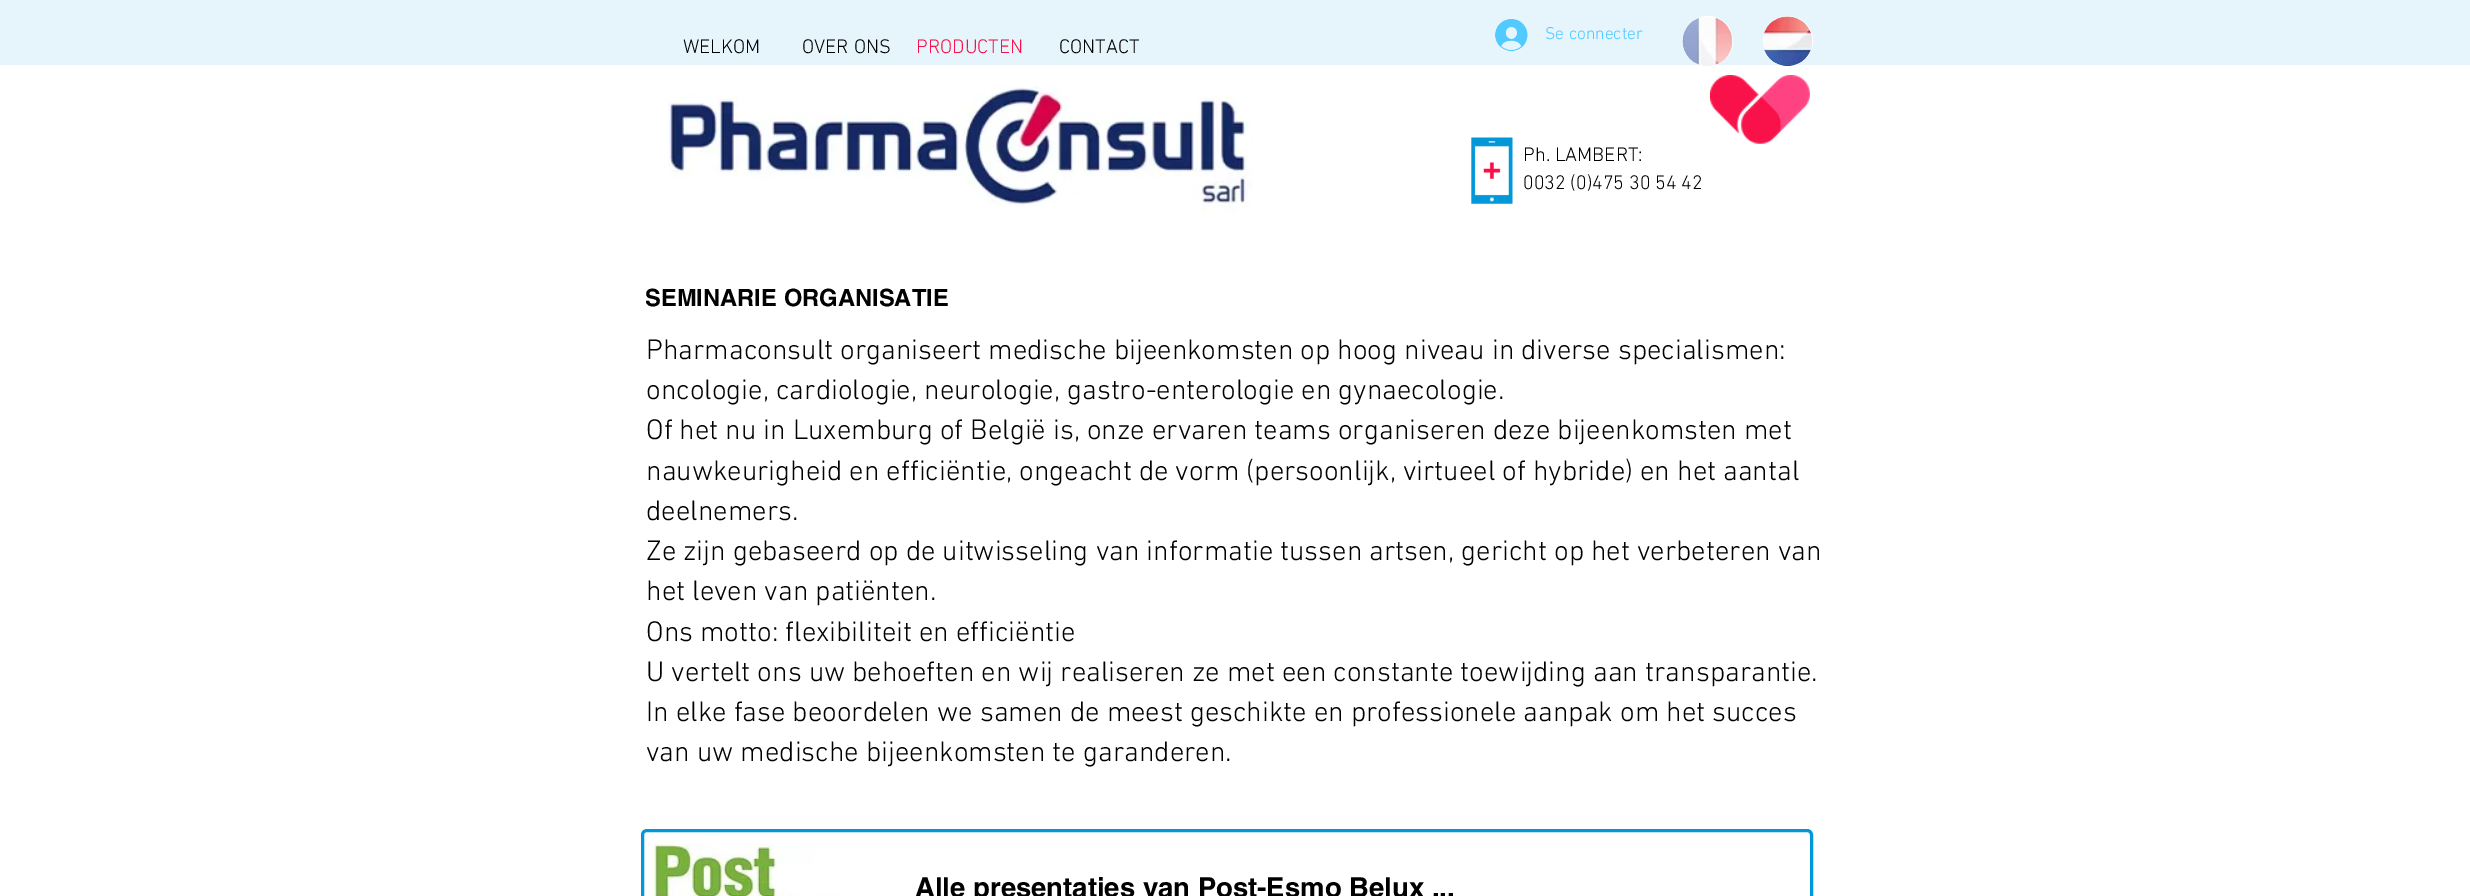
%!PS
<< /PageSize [2470 896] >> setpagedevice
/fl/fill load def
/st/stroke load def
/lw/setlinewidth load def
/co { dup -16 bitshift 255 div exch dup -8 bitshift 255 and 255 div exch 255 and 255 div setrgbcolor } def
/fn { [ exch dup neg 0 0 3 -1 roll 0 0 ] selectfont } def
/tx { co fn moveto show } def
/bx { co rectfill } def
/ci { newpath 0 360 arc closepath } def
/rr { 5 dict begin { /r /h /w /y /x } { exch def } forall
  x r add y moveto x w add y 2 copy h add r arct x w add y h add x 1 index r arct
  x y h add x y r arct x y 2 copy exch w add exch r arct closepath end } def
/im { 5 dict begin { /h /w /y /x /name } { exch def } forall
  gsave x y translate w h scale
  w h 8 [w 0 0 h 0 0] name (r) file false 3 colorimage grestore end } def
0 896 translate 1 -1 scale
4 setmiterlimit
0 0 2470 896 16#FFFFFF bx
0 0 2470 65 16#E6F5FC bx
(media/1.raw) 1495 19 33 32 im
(media/2.raw) 668 86 585 127 im
(media/3.raw) 1471 137 42 67 im
(media/4.raw) 1710 75 100 69 im
16#FFFFFF co
1708 41 25 ci fl
(media/5.raw) 1682 17 51 49 im
1788 41 25 ci fl
(media/6.raw) 1763 16 49 50 im
16#0197D9 co
3 lw
642.5 830.5 1169 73 4.5 rr st
(media/7.raw) 654 844 190 52 im
(Se connecter) 1545 39 /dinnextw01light-Light 17.5 16#50CAFF tx
(Ph. LAMBERT:) 1523 161 /dinnextw01light-Light 20 16#000000 tx
(0032 \(0\)475 30 54 42) 1523 189 /dinnextw01light-Light 20 16#000000 tx
(WELKOM) 683 53 /dinnextw01light-Light 20 16#000000 tx
(OVER ONS) 802 53 /dinnextw01light-Light 20 16#000000 tx
(PRODUCTEN) 916 53 /dinnextw01light-Light 20 16#F81249 tx
(CONTACT) 1059 53 /dinnextw01light-Light 20 16#000000 tx
(SEMINARIE ORGANISATIE) 645 306 /helvetica-Bold 23.75 16#000000 tx
(Pharmaconsult organiseert medische bijeenkomsten op hoog niveau in diverse specialismen:) 646 359 /dinnextw01light-Light 28.75 16#000000 tx
(oncologie, cardiologie, neurologie, gastro-enterologie en gynaecologie.) 646 399 /dinnextw01light-Light 28.75 16#000000 tx
(Of het nu in Luxemburg of België is, onze ervaren teams organiseren deze bijeenkomsten met) 646 439 /dinnextw01light-Light 28.75 16#000000 tx
(nauwkeurigheid en efficiëntie, ongeacht de vorm \(persoonlijk, virtueel of hybride\) en het aantal) 646 480 /dinnextw01light-Light 28.75 16#000000 tx
(deelnemers.) 646 520 /dinnextw01light-Light 28.75 16#000000 tx
(Ze zijn gebaseerd op de uitwisseling van informatie tussen artsen, gericht op het verbeteren van) 646 560 /dinnextw01light-Light 28.75 16#000000 tx
(het leven van patiënten.) 646 600 /dinnextw01light-Light 28.75 16#000000 tx
(Ons motto: flexibiliteit en efficiëntie) 646 641 /dinnextw01light-Light 28.75 16#000000 tx
(U vertelt ons uw behoeften en wij realiseren ze met een constante toewijding aan transparantie.) 646 681 /dinnextw01light-Light 28.75 16#000000 tx
(In elke fase beoordelen we samen de meest geschikte en professionele aanpak om het succes) 646 721 /dinnextw01light-Light 28.75 16#000000 tx
(van uw medische bijeenkomsten te garanderen.) 646 761 /dinnextw01light-Light 28.75 16#000000 tx
(Alle presentaties van Post-Esmo Belux ...) 915 897 /helvetica-Bold 27.5 16#000000 tx
showpage
